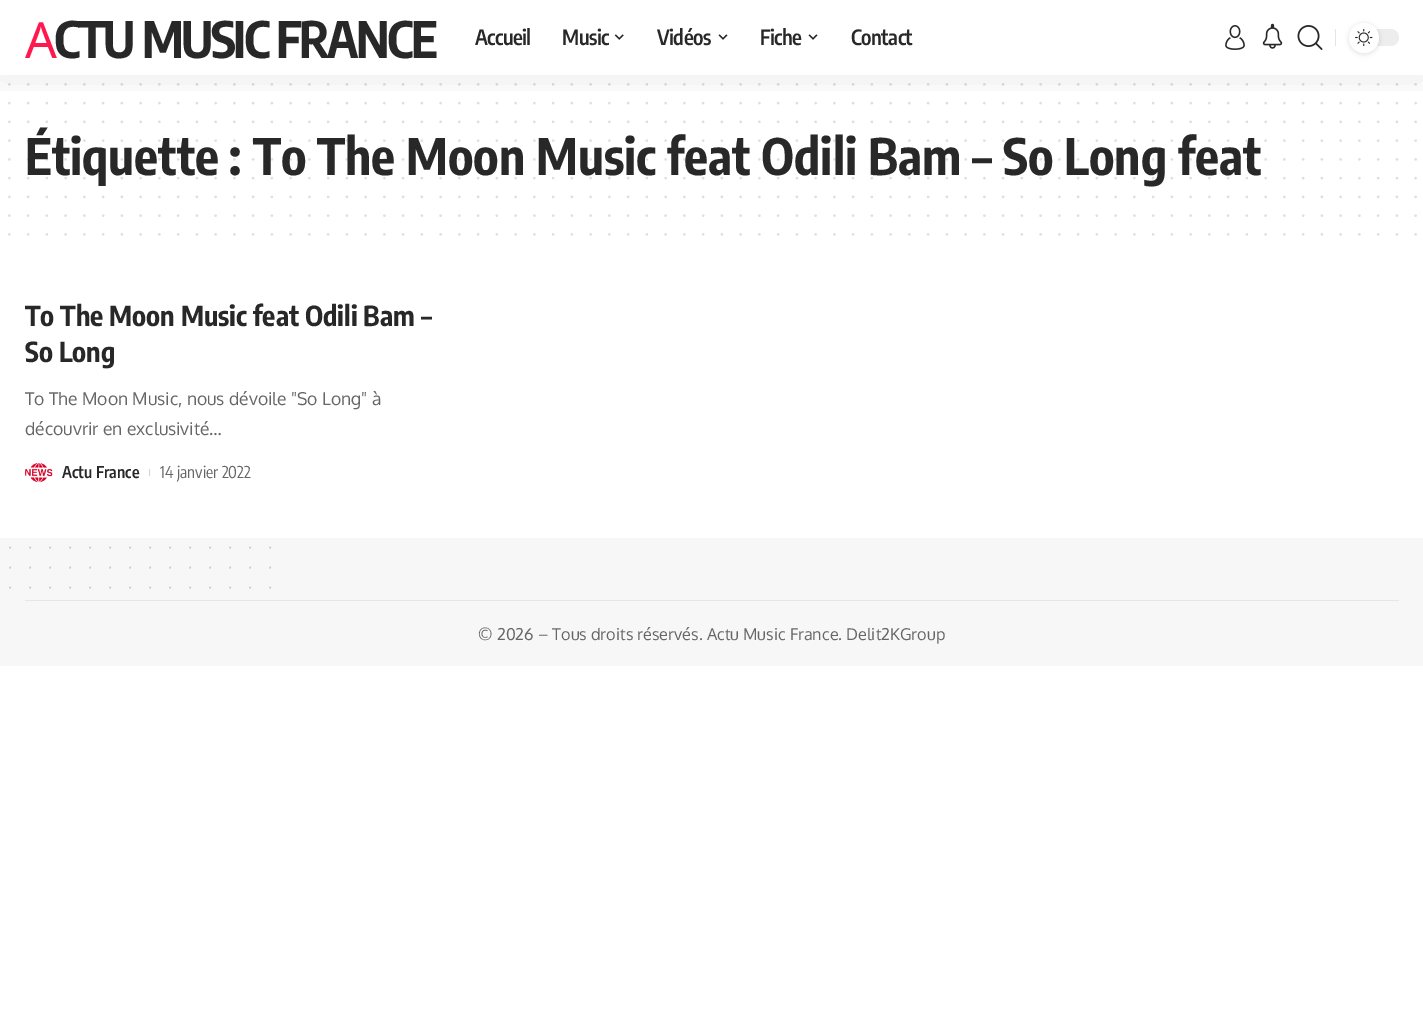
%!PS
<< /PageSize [1423 1028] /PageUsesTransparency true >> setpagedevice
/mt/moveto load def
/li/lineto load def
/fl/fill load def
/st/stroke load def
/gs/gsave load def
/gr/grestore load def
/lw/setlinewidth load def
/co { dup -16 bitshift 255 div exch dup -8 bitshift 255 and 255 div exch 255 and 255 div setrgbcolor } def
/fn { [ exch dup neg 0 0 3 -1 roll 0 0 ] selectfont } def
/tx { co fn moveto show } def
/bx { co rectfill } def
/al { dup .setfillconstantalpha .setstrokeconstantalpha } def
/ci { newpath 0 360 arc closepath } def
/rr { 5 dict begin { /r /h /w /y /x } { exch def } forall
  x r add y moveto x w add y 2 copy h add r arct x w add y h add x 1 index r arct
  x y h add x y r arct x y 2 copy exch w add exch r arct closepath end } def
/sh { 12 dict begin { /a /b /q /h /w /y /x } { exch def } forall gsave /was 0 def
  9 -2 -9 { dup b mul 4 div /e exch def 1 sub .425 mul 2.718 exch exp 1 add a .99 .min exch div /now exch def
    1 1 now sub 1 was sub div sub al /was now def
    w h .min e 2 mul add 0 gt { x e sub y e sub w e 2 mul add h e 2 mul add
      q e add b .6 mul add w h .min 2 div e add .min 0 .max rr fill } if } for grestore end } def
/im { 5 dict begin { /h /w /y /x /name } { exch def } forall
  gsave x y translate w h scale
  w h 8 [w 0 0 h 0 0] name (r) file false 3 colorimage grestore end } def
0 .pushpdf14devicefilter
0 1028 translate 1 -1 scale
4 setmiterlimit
0 0 1423 1028 16#FFFFFF bx
16#DFDFDF co
2.5 lw
1 setlinecap
[0 18.75] 0 setdash
9.4 84.4 mt 1415.9 84.4 li st
9.4 103.1 mt 1415.9 103.1 li st
9.4 121.9 mt 1415.9 121.9 li st
gs
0 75 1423 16 rectclip
16#000000 co
0 5 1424 75 0 19 .07 sh
gr
(media/1.raw) 614 34 10 6 im
(media/2.raw) 718 34 10 6 im
(media/2.raw) 808 34 10 6 im
(media/3.raw) 1225 25 20 25 im
(media/4.raw) 1262 23 21 26 im
(media/5.raw) 1297 25 26 25 im
1335 29 1 17 16#E4E4E4 bx
16#EDEDED co
1349 29 50 17 8.5 rr fl
16#000000 co
1349 24 30 30 15 2.5 .12 sh
16#FFFFFF co
1364 38 15 ci fl
(media/6.raw) 1355 29 18 17 im
16#DFDFDF co
9.4 196.9 mt 1415.9 196.9 li st
9.4 215.6 mt 1415.9 215.6 li st
9.4 234.4 mt 1415.9 234.4 li st
(media/7.raw) 25 463 28 20 im
149 469 1 7 16#D1D1D1 bx
0 538 1423 128 16#F7F7F7 bx
16#CECECE co
1.9 lw
[0 20] 0 setdash
10 547.5 mt 270.2 547.5 li st
10 567.5 mt 270.2 567.5 li st
10 587.5 mt 270.2 587.5 li st
25 600 1374 1 16#E6E6E6 bx
/NotoSans-Regular 50 fn
16#FF184E co
25 58 mt -2.5 0 (A) ashow
/EncodeSansCondensed-Bold 50 fn
16#282828 co
54 58 mt -2.5 0 (CTU MUSIC FRANCE) ashow
/EncodeSansCondensed-SemiBold 21 fn
475 45 mt -.5 0 (Accueil) ashow
562 45 mt -.5 0 (Music) ashow
657 45 mt -.5 0 (Vidéos) ashow
760 45 mt -.5 0 (Fiche) ashow
851 45 mt -.5 0 (Contact) ashow
(Étiquette : To The Moon Music feat Odili Bam – So Long feat) 25 175 /EncodeSansCondensed-Bold 50 16#282828 tx
0.15 al
2.5 lw
[0 18.75] 0 setdash
9.4 178.1 mt 1415.9 178.1 li st
9.4 159.4 mt 1415.9 159.4 li st
9.4 140.6 mt 1415.9 140.6 li st
1 al
(To The Moon Music feat Odili Bam –) 25 326 /EncodeSansCondensed-Bold 27.5 16#282828 tx
(So Long) 25 362 /EncodeSansCondensed-Bold 27.5 16#282828 tx
(To The Moon Music, nous dévoile "So Long" à) 25 405 /Oxygen-Regular 17.5 16#666666 tx
(découvrir en exclusivité…) 25 435 /Oxygen-Regular 17.5 16#666666 tx
(Actu France) 62 478 /EncodeSansCondensed-SemiBold 16.25 16#282828 tx
(14 janvier 2022) 160 478 /EncodeSansCondensed-Regular 16.25 16#666666 tx
(© 2026 – Tous droits réservés. Actu Music France. Delit2KGroup) 478 640 /Oxygen-Regular 16.25 16#666666 tx
.poppdf14devicefilter showpage
